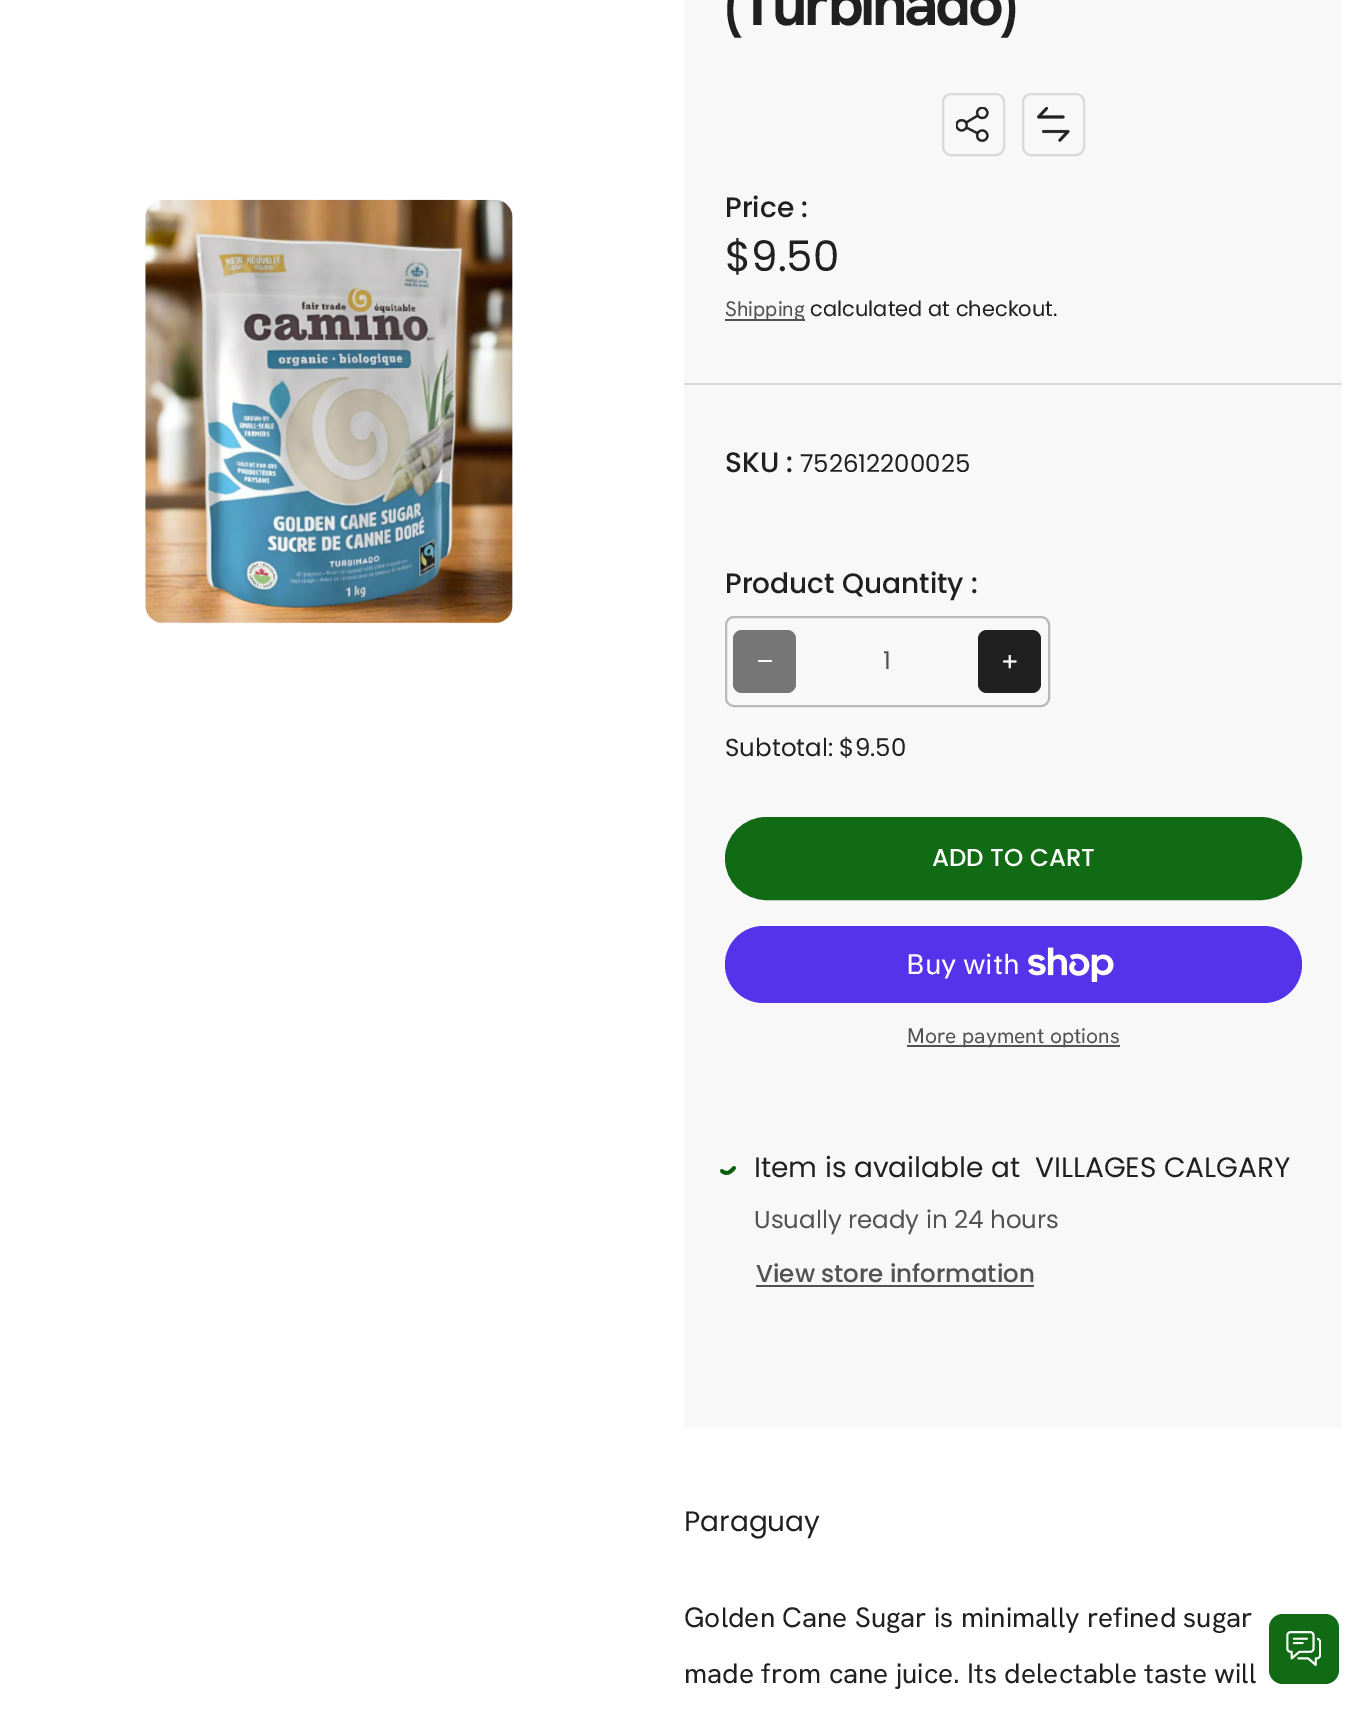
%!PS
<< /PageSize [1368 1713] >> setpagedevice
/mt/moveto load def
/ct/curveto load def
/fl/fill load def
/st/stroke load def
/gs/gsave load def
/gr/grestore load def
/lw/setlinewidth load def
/co { dup -16 bitshift 255 div exch dup -8 bitshift 255 and 255 div exch 255 and 255 div setrgbcolor } def
/fn { [ exch dup neg 0 0 3 -1 roll 0 0 ] selectfont } def
/tx { co fn moveto show } def
/bx { co rectfill } def
/rr { 5 dict begin { /r /h /w /y /x } { exch def } forall
  x r add y moveto x w add y 2 copy h add r arct x w add y h add x 1 index r arct
  x y h add x y r arct x y 2 copy exch w add exch r arct closepath end } def
/im { 5 dict begin { /h /w /y /x /name } { exch def } forall
  gsave x y translate w h scale
  w h 8 [w 0 0 h 0 0] name (r) file false 3 colorimage grestore end } def
0 1713 translate 1 -1 scale
4 setmiterlimit
0 0 1368 1713 16#FFFFFF bx
(media/1.raw) 145 199 368 425 im
684 0 658 1428 16#F8F8F8 bx
16#D9D9D9 co
2 lw
943 94 61 61 8 rr st
(media/2.raw) 956 107 33 35 im
1023 94 61 61 8 rr st
(media/3.raw) 1037 107 33 35 im
725 319 80 2 16#525252 bx
684 383 658 2 16#D9D9D9 bx
16#B9B9B9 co
726 617 323 89 8 rr st
16#767676 co
733 630 63 63 9 rr fl
16#F8F8F8 co
758 660 14 2 1 rr fl
16#202020 co
978 630 63 63 9 rr fl
(media/4.raw) 1003 655 14 14 im
16#116A14 co
726 818 575 81 40.5 rr gs fl gr
st
16#5433EB co
725 926 577 77 38.5 rr fl
(media/5.raw) 1028 947 86 35 im
907 1045 213 2 16#525252 bx
16#075F0C co
3.8 lw
1 setlinecap
722 1171 mt 727 1175.5 730.5 1172 734 1168 ct st
756 1285 278 2 16#525252 bx
16#116A14 co
1269 1614 70 70 14 rr fl
(media/6.raw) 1286 1631 35 35 im
/HankenGrotesk-Bold 63 fn
16#202020 co
725 25 mt -3.5 0 (\(Turbinado\)) ashow
(Price :) 725 217 /Poppins-Medium 28 16#202020 tx
($9.50) 725 271 /Poppins-Regular 42 16#202020 tx
(Shipping) 725 316 /HankenGrotesk-Regular 21 16#525252 tx
(calculated at checkout.) 810 316 /Poppins-Regular 21 16#202020 tx
(SKU :) 725 472 /Poppins-Medium 28 16#202020 tx
(752612200025) 800 472 /Poppins-Regular 24.5 16#202020 tx
(Product Quantity :) 725 593 /Poppins-Medium 28 16#202020 tx
(1) 883 669 /Poppins-Regular 24.5 16#525252 tx
(Subtotal: $9.50) 725 756 /Poppins-Regular 24.5 16#202020 tx
(ADD TO CART) 932 866 /Poppins-Medium 24.5 16#FFFFFF tx
(Buy with) 906 974 /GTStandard-Regular 28 16#FFFFFF tx
(More payment options) 907 1043 /HankenGrotesk-Regular 21 16#525252 tx
(Item is available at  VILLAGES CALGARY) 754 1177 /Poppins-Regular 28 16#202020 tx
(Usually ready in 24 hours) 754 1228 /Poppins-Regular 24.5 16#525252 tx
(View store information) 756 1282 /Poppins-Medium 24.5 16#525252 tx
(Paraguay) 684 1531 /Poppins-Regular 28 16#202020 tx
(Golden Cane Sugar is minimally refined sugar) 684 1627 /HankenGrotesk-Regular 28 16#202020 tx
(made from cane juice. Its delectable taste will) 684 1683 /HankenGrotesk-Regular 28 16#202020 tx
showpage
